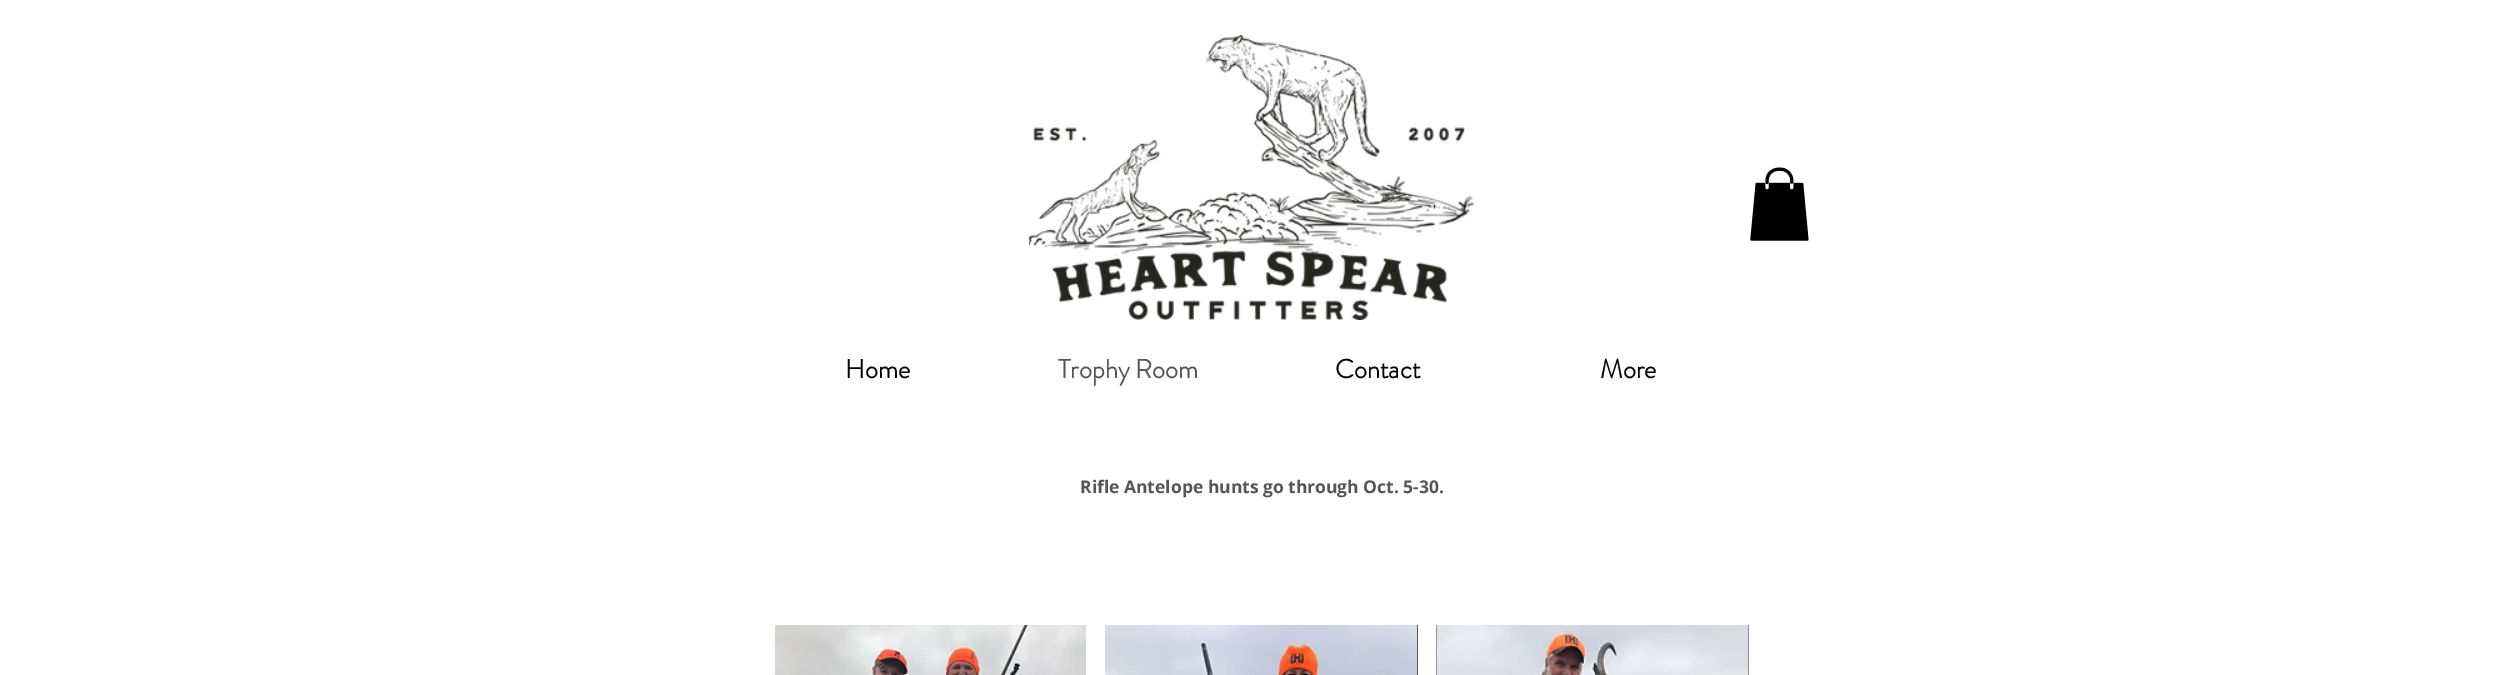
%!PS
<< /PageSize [2501 675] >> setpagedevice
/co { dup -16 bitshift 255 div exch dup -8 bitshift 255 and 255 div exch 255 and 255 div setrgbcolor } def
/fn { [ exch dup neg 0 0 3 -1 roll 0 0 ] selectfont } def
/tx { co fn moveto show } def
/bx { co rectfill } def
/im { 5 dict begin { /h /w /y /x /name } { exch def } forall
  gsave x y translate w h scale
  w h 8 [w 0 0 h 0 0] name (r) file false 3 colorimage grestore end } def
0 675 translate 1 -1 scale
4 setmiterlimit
0 0 2501 675 16#FFFFFF bx
(media/1.raw) 1028 35 446 285 im
(media/2.raw) 1750 167 59 74 im
(media/3.raw) 775 625 311 50 im
1417 625 1 50 16#2F2E2E bx
(media/4.raw) 1105 625 313 50 im
1436 625 313 50 16#2F2E2E bx
(media/5.raw) 1436 625 313 50 im
(Home) 845 378 /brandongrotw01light-Bold 26.25 16#000000 tx
(Trophy Room) 1058 378 /brandongrotw01light-Bold 26.25 16#555555 tx
(Contact) 1335 378 /brandongrotw01light-Bold 26.25 16#000000 tx
(More) 1600 378 /brandongrotw01light-Bold 26.25 16#000000 tx
(Rifle Antelope hunts go through Oct. 5-30.) 1080 493 /OpenSans-Bold 17.5 16#555555 tx
showpage
